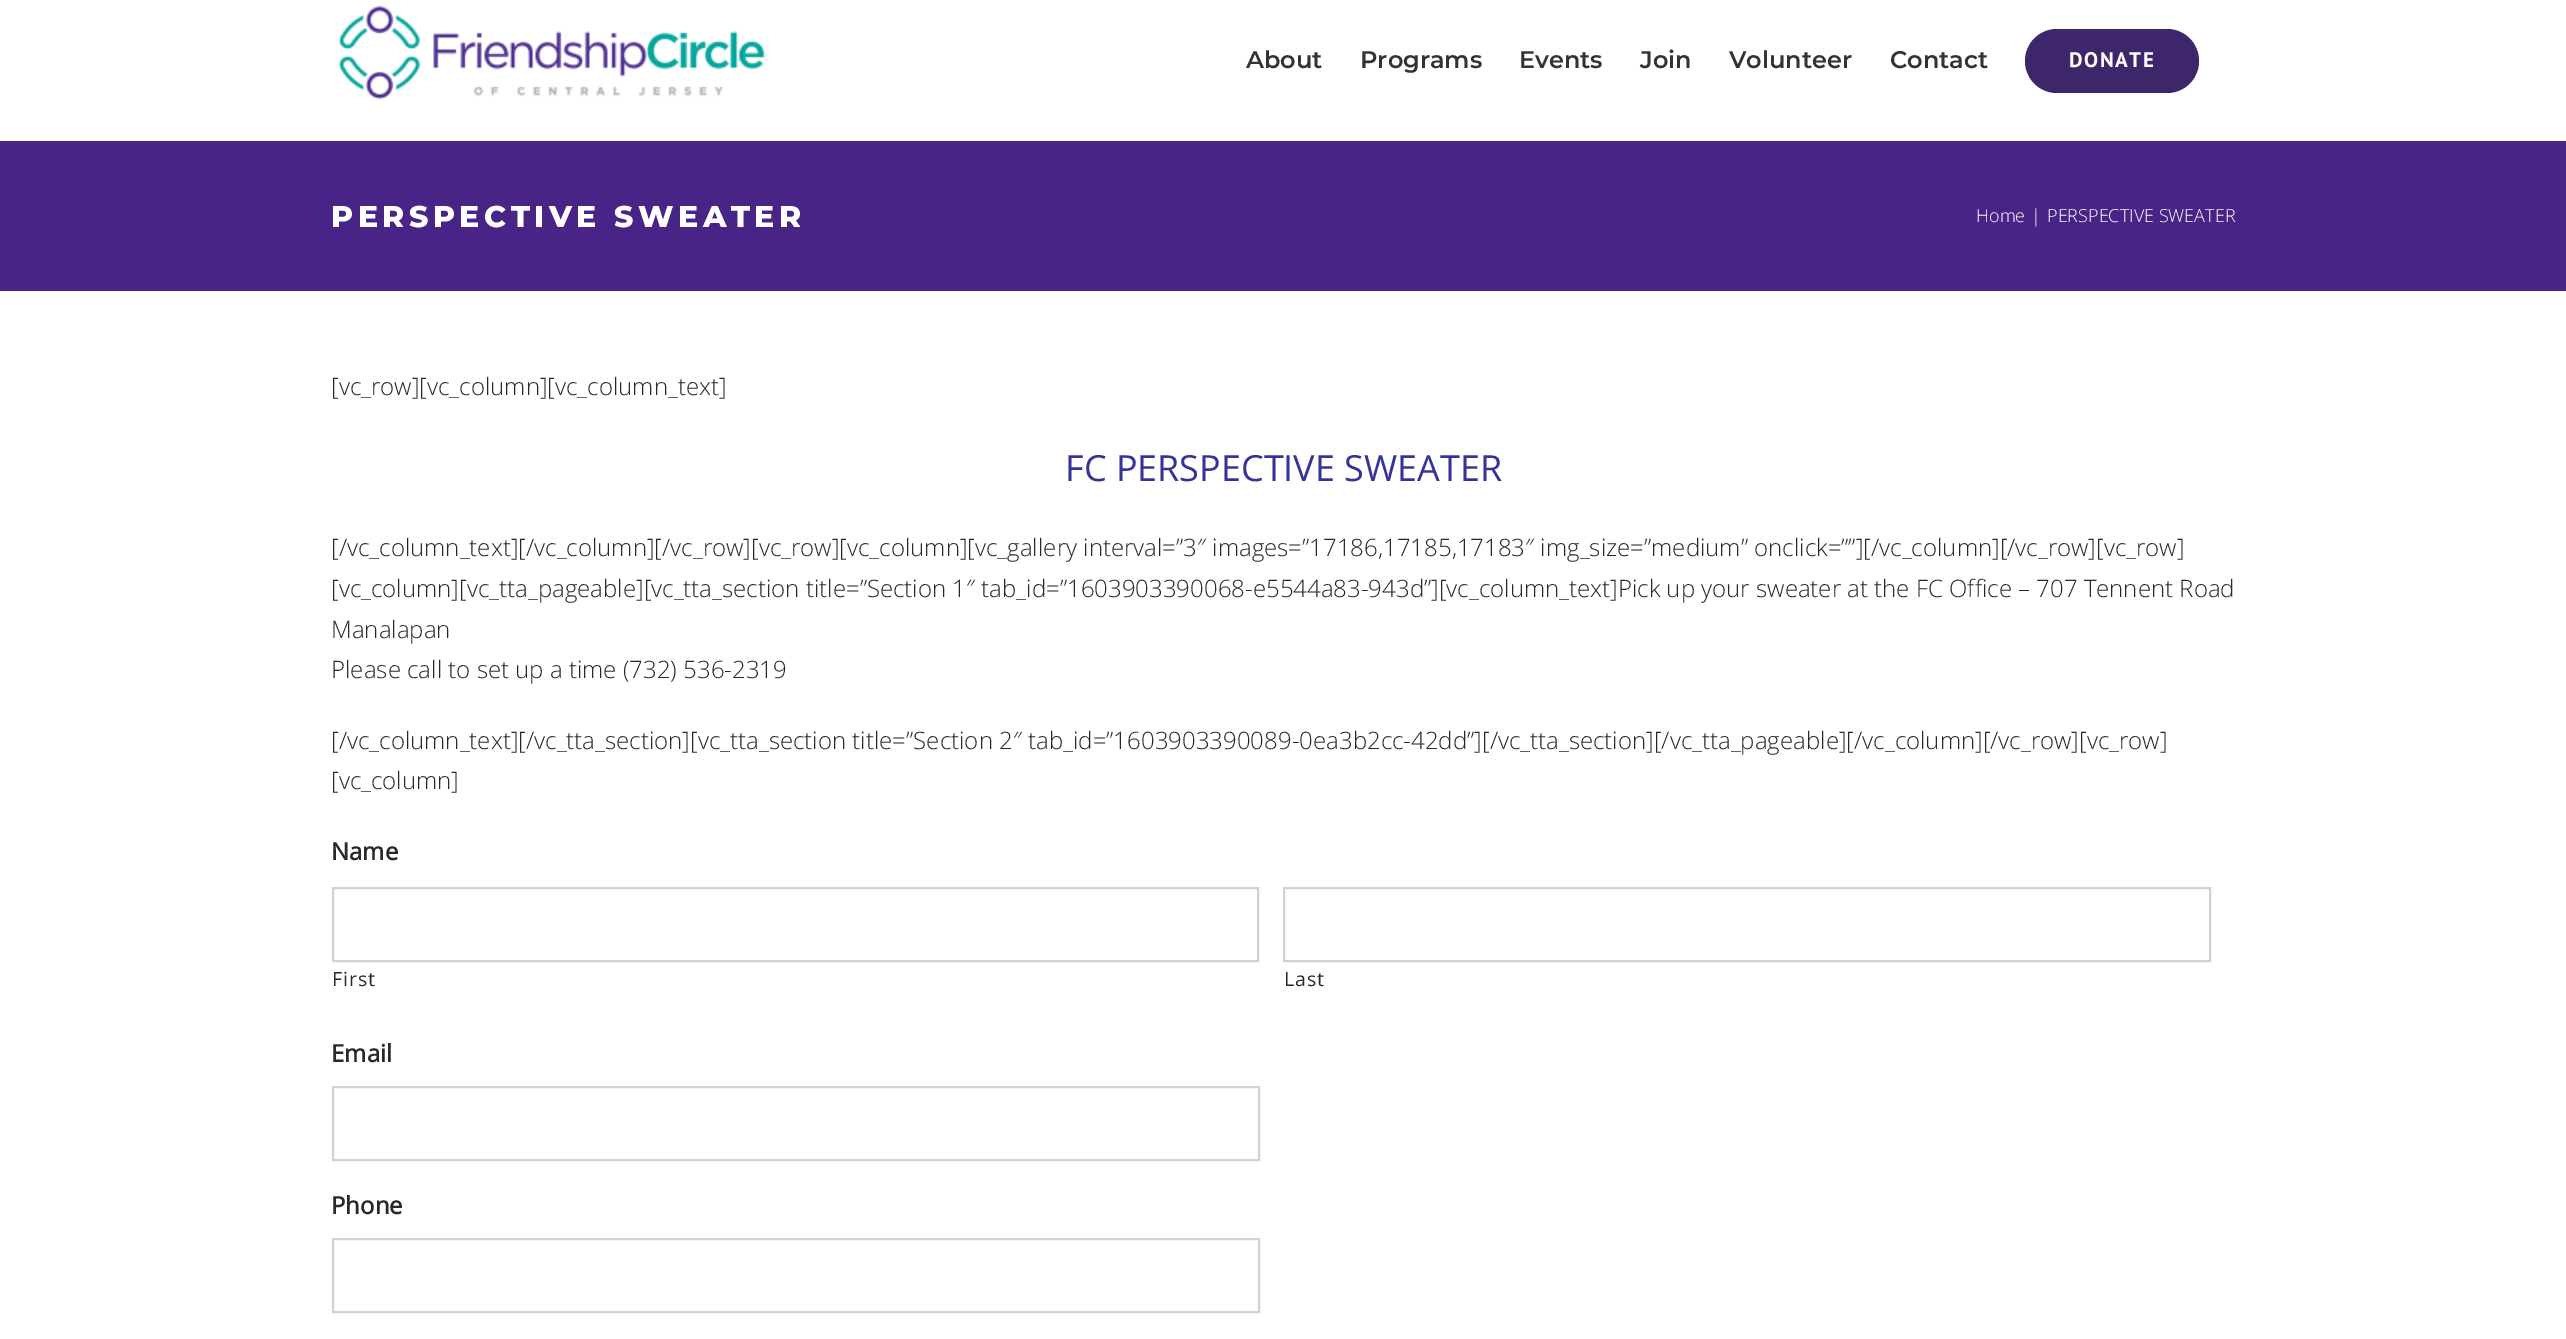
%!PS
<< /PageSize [2566 1339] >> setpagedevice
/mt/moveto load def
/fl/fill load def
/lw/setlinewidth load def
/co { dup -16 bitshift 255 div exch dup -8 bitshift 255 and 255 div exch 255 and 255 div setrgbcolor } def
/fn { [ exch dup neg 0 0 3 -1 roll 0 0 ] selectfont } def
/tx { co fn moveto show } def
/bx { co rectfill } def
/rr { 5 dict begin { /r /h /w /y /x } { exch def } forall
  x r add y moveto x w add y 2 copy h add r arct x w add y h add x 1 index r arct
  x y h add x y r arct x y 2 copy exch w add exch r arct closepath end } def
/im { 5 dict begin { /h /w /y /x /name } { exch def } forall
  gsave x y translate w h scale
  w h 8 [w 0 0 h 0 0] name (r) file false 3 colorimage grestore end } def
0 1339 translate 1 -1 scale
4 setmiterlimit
0 0 2566 1339 16#FFFFFF bx
(media/1.raw) 338 5 428 95 im
16#3E266B co
2025 29 174 64 32 rr fl
0 141 2566 150 16#472486 bx
16#D2D2D2 co
2 lw
333 888 925 73 rectstroke
1284 888 926 73 rectstroke
333 1087 926 73 rectstroke
333 1239 926 73 rectstroke
(About) 1246 68 /Montserrat-SemiBold 24 16#333333 tx
(Programs) 1360 68 /Montserrat-SemiBold 24 16#333333 tx
(Events) 1519 68 /Montserrat-SemiBold 24 16#333333 tx
(Join) 1640 68 /Montserrat-SemiBold 24 16#333333 tx
(Volunteer) 1729 68 /Montserrat-SemiBold 24 16#333333 tx
(Contact) 1890 68 /Montserrat-SemiBold 24 16#333333 tx
/PTSans-Bold 21 fn
16#FFFFFF co
2069 67 mt 1.5 0 (DONATE) ashow
/Montserrat-ExtraBold 30 fn
331 227 mt 4.5 0 (PERSPECTIVE SWEATER) ashow
(Home) 1976 222 /OpenSans-Light 18 16#FFFFFF tx
(|) 2031 222 /OpenSans-Light 18 16#FFFFFF tx
(PERSPECTIVE SWEATER) 2047 222 /OpenSans-Light 18 16#FFFFFF tx
([vc_row][vc_column][vc_column_text]) 331 395 /OpenSans-Light 24 16#282828 tx
(FC PERSPECTIVE SWEATER) 1065 481 /OpenSans-Regular 36 16#333399 tx
([/vc_column_text][/vc_column][/vc_row][vc_row][vc_column][vc_gallery interval=”3″ images=”17186,17185,17183″ img_size=”medium” onclick=””][/vc_column][/vc_row][vc_row]) 331 556 /OpenSans-Light 24 16#282828 tx
([vc_column][vc_tta_pageable][vc_tta_section title=”Section 1″ tab_id=”1603903390068-e5544a83-943d”][vc_column_text]Pick up your sweater at the FC Office – 707 Tennent Road) 331 597 /OpenSans-Light 24 16#282828 tx
(Manalapan) 331 638 /OpenSans-Light 24 16#282828 tx
(Please call to set up a time \(732\) 536-2319) 331 678 /OpenSans-Light 24 16#282828 tx
([/vc_column_text][/vc_tta_section][vc_tta_section title=”Section 2″ tab_id=”1603903390089-0ea3b2cc-42dd”][/vc_tta_section][/vc_tta_pageable][/vc_column][/vc_row][vc_row]) 331 749 /OpenSans-Light 24 16#282828 tx
([vc_column]) 331 789 /OpenSans-Light 24 16#282828 tx
(Name) 331 860 /OpenSans-Bold 24 16#282828 tx
/OpenSans-Regular 19.5 fn
332 986 mt 1 0 (First) ashow
1284 986 mt 1 0 (Last) ashow
(Email) 331 1062 /OpenSans-Bold 24 16#282828 tx
(Phone) 331 1214 /OpenSans-Bold 24 16#282828 tx
showpage
